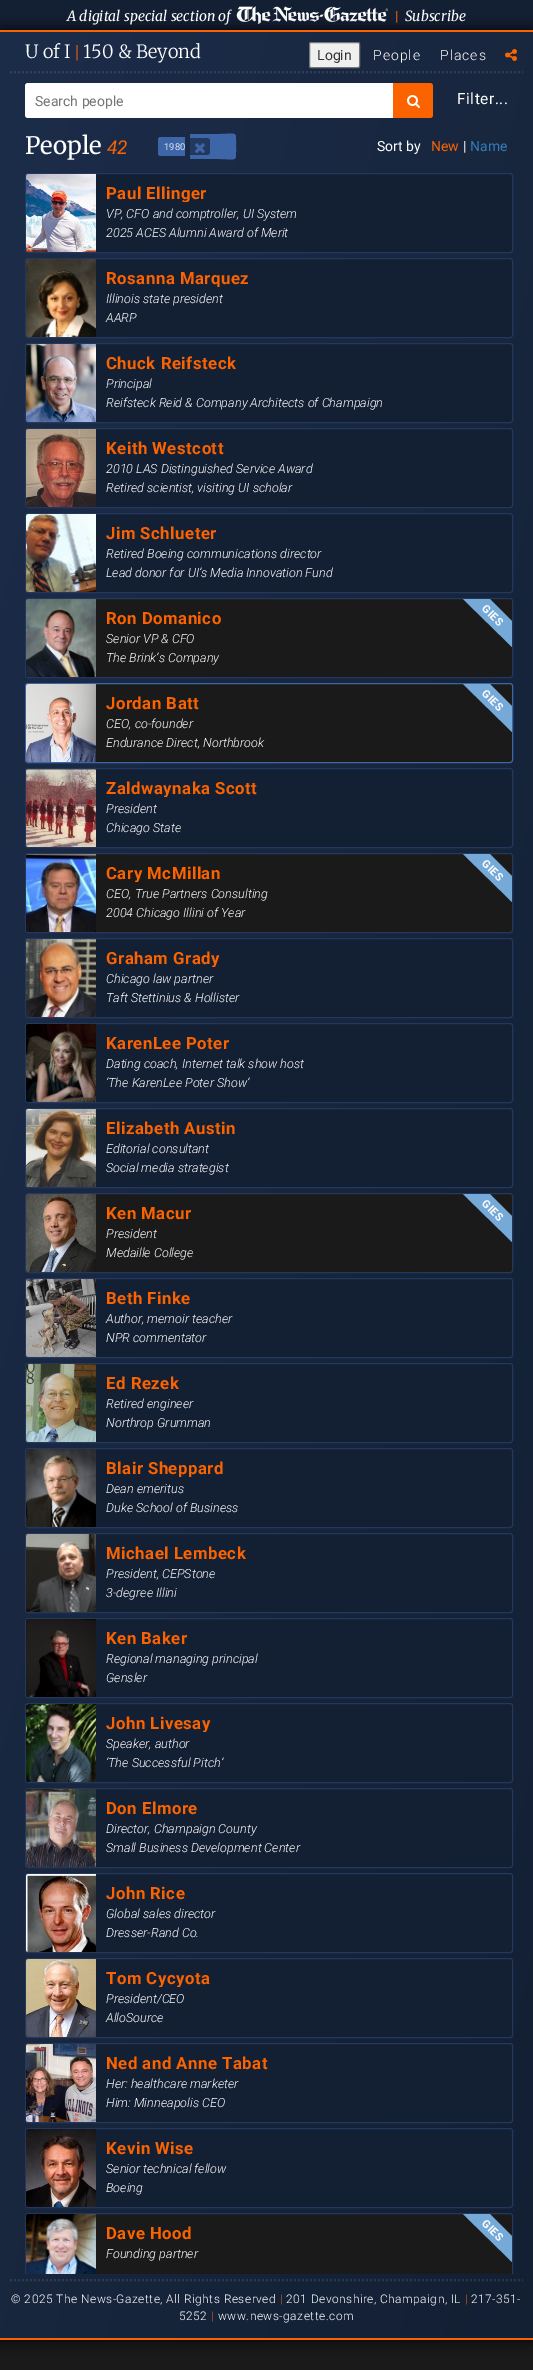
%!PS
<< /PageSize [533 2370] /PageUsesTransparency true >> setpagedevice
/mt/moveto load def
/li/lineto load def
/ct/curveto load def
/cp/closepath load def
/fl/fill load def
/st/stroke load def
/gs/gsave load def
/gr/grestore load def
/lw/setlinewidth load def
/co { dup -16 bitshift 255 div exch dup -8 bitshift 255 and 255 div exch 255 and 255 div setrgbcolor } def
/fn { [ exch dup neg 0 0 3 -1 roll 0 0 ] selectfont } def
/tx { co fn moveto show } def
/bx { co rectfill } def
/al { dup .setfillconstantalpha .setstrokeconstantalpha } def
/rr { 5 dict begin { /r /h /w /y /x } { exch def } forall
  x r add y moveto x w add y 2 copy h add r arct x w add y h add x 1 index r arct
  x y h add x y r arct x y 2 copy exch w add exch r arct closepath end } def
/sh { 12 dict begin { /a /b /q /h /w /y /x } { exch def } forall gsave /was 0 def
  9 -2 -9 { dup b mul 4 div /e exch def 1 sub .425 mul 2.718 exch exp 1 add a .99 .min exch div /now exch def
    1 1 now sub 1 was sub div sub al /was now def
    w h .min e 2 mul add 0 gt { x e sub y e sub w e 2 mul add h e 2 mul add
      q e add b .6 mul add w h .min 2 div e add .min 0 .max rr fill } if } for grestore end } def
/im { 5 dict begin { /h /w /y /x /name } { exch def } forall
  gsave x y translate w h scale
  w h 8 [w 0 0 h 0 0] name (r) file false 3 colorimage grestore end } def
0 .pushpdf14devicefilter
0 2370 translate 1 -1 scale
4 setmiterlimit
0 0 533 2370 16#131F33 bx
(media/1.raw) 236 6 153 19 im
0 2340 533 30 16#1A1A1A bx
16#000000 co
0 30 533 2310 0 7 .6 sh
0 30 533 2310 0 4.5 .6 sh
gs 0 32 mt 533 32 li 533 2338 li 0 2338 li cp clip newpath
<< /ShadingType 2 /ColorSpace /DeviceRGB /Coords [-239 1068 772 1302] /Extend [true true] /Function << /FunctionType 2 /Domain [0 1] /C0 [.11 .176 .29] /C1 [.075 .122 .2] /N 1 >> >> shfill gr
0 30 533 2 16#FA6300 bx
0 2338 533 2 16#FA6300 bx
16#EFEFEF co
309.5 42.5 50 25 1.5 rr gs fl gr
16#767676 co
st
(media/2.raw) 505 49 12 12 im
0.1 al
16#FFFFFF co
2 lw
[2 2] 0 setdash
10 72 mt 523 72 li st
1 al
28 83 mt 393 83 li 393 118 li 28 118 li 26.5 118 25 116.5 25 115 ct 25 86 li 25 84.5 26.5 83 28 83 ct cp fl
16#FA6300 co
393 83 mt 430 83 li 431.5 83 433 84.5 433 86 ct 433 115 li 433 116.5 431.5 118 430 118 ct 393 118 li cp fl
(media/3.raw) 407 95 13 13 im
16#3E65A8 co
161 137 mt 185 137 li 185 156 li 161 156 li 159.5 156 158 154.5 158 153 ct 158 140 li 158 138.5 159.5 137 161 137 ct cp fl
161 137 mt 185 137 li 185 156 li 161 156 li 159.5 156 158 154.5 158 153 ct 158 140 li 158 138.5 159.5 137 161 137 ct cp 161 138 mt 185 138 li 185 155 li 161 155 li 160 155 159 154 159 153 ct 159 140 li 159 139 160 138 161 138 ct cp eofill
190 134 mt 233 134 li 234.5 134 236 135.5 236 137 ct 236 156 li 236 157.5 234.5 159 233 159 ct 190 159 li cp fl
190 134 mt 219 134 li 237 134 236 130 236 146 ct 236 163 237 159 219 159 ct 190 159 li cp 190 135 mt 219 135 li 237 135 235 131 235 146 ct 235 162 237 158 219 158 ct 190 158 li cp eofill
16#22385D co
190 138 mt 207 138 li 208.5 138 210 139.5 210 141 ct 210 152 li 210 153.5 208.5 155 207 155 ct 190 155 li cp fl
(media/4.raw) 195 143 10 10 im
16#131F33 co
25.5 173.5 487 79 2.5 rr gs fl gr
16#23385C co
1 lw
[] 0 setdash
st
(media/5.raw) 26 174 70 78 im
16#131F33 co
25.5 258.5 487 79 2.5 rr gs fl gr
16#23385C co
st
(media/6.raw) 26 259 70 78 im
16#131F33 co
25.5 343.5 487 79 2.5 rr gs fl gr
16#23385C co
st
(media/7.raw) 26 344 70 78 im
16#131F33 co
25.5 428.5 487 79 2.5 rr gs fl gr
16#23385C co
st
(media/8.raw) 26 429 70 78 im
16#131F33 co
25.5 513.5 487 79 2.5 rr gs fl gr
16#23385C co
st
(media/9.raw) 26 514 70 78 im
16#1A1A1A co
25.5 598.5 487 79 2.5 rr gs fl gr
16#23385C co
st
(media/10.raw) 26 599 70 78 im
16#74A9D8 co
512 647 mt 463 599 li 490 599 li 512 621 li cp fl
16#1A1A1A co
25.5 683.5 487 79 2.5 rr gs fl gr
16#3E65A8 co
st
(media/11.raw) 26 684 70 78 im
16#74A9D8 co
512 732 mt 463 684 li 490 684 li 512 706 li cp fl
16#131F33 co
25.5 768.5 487 79 2.5 rr gs fl gr
16#23385C co
st
(media/12.raw) 26 769 70 78 im
16#1A1A1A co
25.5 853.5 487 79 2.5 rr gs fl gr
16#23385C co
st
(media/13.raw) 26 854 70 78 im
16#74A9D8 co
512 902 mt 463 854 li 490 854 li 512 876 li cp fl
16#131F33 co
25.5 938.5 487 79 2.5 rr gs fl gr
16#23385C co
st
(media/14.raw) 26 939 70 78 im
16#131F33 co
25.5 1023.5 487 79 2.5 rr gs fl gr
16#23385C co
st
(media/15.raw) 26 1024 70 78 im
16#131F33 co
25.5 1108.5 487 79 2.5 rr gs fl gr
16#23385C co
st
(media/16.raw) 26 1109 70 78 im
16#1A1A1A co
25.5 1193.5 487 79 2.5 rr gs fl gr
16#23385C co
st
(media/17.raw) 26 1194 70 78 im
16#74A9D8 co
512 1242 mt 463 1194 li 490 1194 li 512 1216 li cp fl
16#131F33 co
25.5 1278.5 487 79 2.5 rr gs fl gr
16#23385C co
st
(media/18.raw) 26 1279 70 78 im
16#131F33 co
25.5 1363.5 487 79 2.5 rr gs fl gr
16#23385C co
st
(media/19.raw) 26 1364 70 78 im
16#131F33 co
25.5 1448.5 487 79 2.5 rr gs fl gr
16#23385C co
st
(media/20.raw) 26 1449 70 78 im
16#131F33 co
25.5 1533.5 487 79 2.5 rr gs fl gr
16#23385C co
st
(media/21.raw) 26 1534 70 78 im
16#131F33 co
25.5 1618.5 487 79 2.5 rr gs fl gr
16#23385C co
st
(media/22.raw) 26 1619 70 78 im
16#131F33 co
25.5 1703.5 487 79 2.5 rr gs fl gr
16#23385C co
st
(media/23.raw) 26 1704 70 78 im
16#131F33 co
25.5 1788.5 487 79 2.5 rr gs fl gr
16#23385C co
st
(media/24.raw) 26 1789 70 78 im
16#131F33 co
25.5 1873.5 487 79 2.5 rr gs fl gr
16#23385C co
st
(media/25.raw) 26 1874 70 78 im
16#131F33 co
25.5 1958.5 487 79 2.5 rr gs fl gr
16#23385C co
st
(media/26.raw) 26 1959 70 78 im
16#131F33 co
25.5 2043.5 487 79 2.5 rr gs fl gr
16#23385C co
st
(media/27.raw) 26 2044 70 78 im
16#131F33 co
25.5 2128.5 487 79 2.5 rr gs fl gr
16#23385C co
st
(media/28.raw) 26 2129 70 78 im
16#1A1A1A co
28 2213 mt 510 2213 li 511.5 2213 513 2214.5 513 2216 ct 513 2274 li 25 2274 li 25 2216 li 25 2214.5 26.5 2213 28 2213 ct cp fl
gs
10 163 513 2111 rectclip
16#23385C co
25.5 2213.5 487 79 2.5 rr st
gr
(media/29.raw) 26 2214 70 60 im
16#74A9D8 co
512 2262 mt 463 2214 li 490 2214 li 512 2236 li cp fl
0.1 al
16#FFFFFF co
2 lw
[2 2] 0 setdash
10 2280 mt 523 2280 li st
1 al
(A digital special section of) 67 21 /Merriweather-Italic 14 16#FFFFFF tx
(|) 395 21 /Roboto-Bold 14 16#FA6300 tx
(Subscribe) 405 21 /Merriweather-Italic 14 16#FFFFFF tx
(U of I) 25 58 /Merriweather-Light 18.25 16#FFFFFF tx
(|) 75 58 /Roboto-Light 18.25 16#FA6300 tx
(150 & Beyond) 83 58 /Merriweather-Light 18.25 16#FFFFFF tx
(Login) 317 60 /Roboto-Regular 14 16#333333 tx
/Roboto-Light 14 fn
16#FFFFFF co
373 60 mt 1 0 (People) ashow
440 60 mt 1 0 (Places) ashow
(Search people) 35 106 /Roboto-Regular 14 16#757575 tx
/Roboto-Regular 15.5 fn
16#FFFFFF co
457 104 mt .5 0 (Filter...) ashow
(People) 25 154 /Merriweather-Regular 24 16#FFFFFF tx
(42) 107 154 /Roboto-Italic 19 16#FA6300 tx
(1980) 164 150 /Roboto-Regular 9.5 16#DAE2F1 tx
(Sort by) 377 151 /Roboto-Regular 14 16#FFFFFF tx
(New) 431 151 /Roboto-Regular 14 16#FA6300 tx
(|) 463 151 /Roboto-Regular 14 16#FFFFFF tx
(Name) 470 151 /Roboto-Regular 14 16#337AB7 tx
gs
106 184 396 18 rectclip
/Roboto-Bold 16.75 fn
16#FA6300 co
106 199 mt .5 0 (Paul Ellinger) ashow
gr
(VP, CFO and comptroller, UI System) 106 218 /Roboto-LightItalic 12.6 16#FFFFFF tx
(2025 ACES Alumni Award of Merit) 106 237 /Roboto-LightItalic 12.6 16#FFFFFF tx
gs
106 269 396 18 rectclip
/Roboto-Bold 16.75 fn
16#FA6300 co
106 284 mt .5 0 (Rosanna Marquez) ashow
gr
(Illinois state president) 106 303 /Roboto-LightItalic 12.6 16#FFFFFF tx
(AARP) 106 322 /Roboto-LightItalic 12.6 16#FFFFFF tx
/Roboto-Bold 16.75 fn
16#FA6300 co
106 369 mt .5 0 (Chuck Reifsteck) ashow
(Principal) 106 388 /Roboto-LightItalic 12.6 16#FFFFFF tx
(Reifsteck Reid & Company Architects of Champaign) 106 407 /Roboto-LightItalic 12.6 16#FFFFFF tx
/Roboto-Bold 16.75 fn
16#FA6300 co
106 454 mt .5 0 (Keith Westcott) ashow
(2010 LAS Distinguished Service Award) 106 473 /Roboto-LightItalic 12.6 16#FFFFFF tx
(Retired scientist, visiting UI scholar) 106 492 /Roboto-LightItalic 12.6 16#FFFFFF tx
/Roboto-Bold 16.75 fn
16#FA6300 co
106 539 mt .5 0 (Jim Schlueter) ashow
(Retired Boeing communications director) 106 558 /Roboto-LightItalic 12.6 16#FFFFFF tx
(Lead donor for UI’s Media Innovation Fund) 106 577 /Roboto-LightItalic 12.6 16#FFFFFF tx
/Roboto-Bold 16.75 fn
16#FA6300 co
106 624 mt .5 0 (Ron Domanico) ashow
/Roboto-Bold 11 fn
16#FFFFFF co
gs 481 609 translate 45 rotate 0 0 mt .5 0 (GIES) ashow gr
(Senior VP & CFO) 106 643 /Roboto-LightItalic 12.6 16#FFFFFF tx
(The Brink’s Company) 106 662 /Roboto-LightItalic 12.6 16#FFFFFF tx
/Roboto-Bold 16.75 fn
16#FA6300 co
106 709 mt .5 0 (Jordan Batt) ashow
/Roboto-Bold 11 fn
16#FFFFFF co
gs 481 694 translate 45 rotate 0 0 mt .5 0 (GIES) ashow gr
(CEO, co-founder) 106 728 /Roboto-LightItalic 12.6 16#FFFFFF tx
(Endurance Direct, Northbrook) 106 747 /Roboto-LightItalic 12.6 16#FFFFFF tx
gs
106 779 396 18 rectclip
/Roboto-Bold 16.75 fn
16#FA6300 co
106 794 mt .5 0 (Zaldwaynaka Scott) ashow
gr
(President) 106 813 /Roboto-LightItalic 12.6 16#FFFFFF tx
(Chicago State) 106 832 /Roboto-LightItalic 12.6 16#FFFFFF tx
gs
106 864 396 18 rectclip
/Roboto-Bold 16.75 fn
16#FA6300 co
106 879 mt .5 0 (Cary McMillan) ashow
gr
/Roboto-Bold 11 fn
gs 481 864 translate 45 rotate 0 0 mt .5 0 (GIES) ashow gr
(CEO, True Partners Consulting) 106 898 /Roboto-LightItalic 12.6 16#FFFFFF tx
(2004 Chicago Illini of Year) 106 917 /Roboto-LightItalic 12.6 16#FFFFFF tx
gs
106 949 396 18 rectclip
/Roboto-Bold 16.75 fn
16#FA6300 co
106 964 mt .5 0 (Graham Grady) ashow
gr
(Chicago law partner) 106 983 /Roboto-LightItalic 12.6 16#FFFFFF tx
(Taft Stettinius & Hollister) 106 1002 /Roboto-LightItalic 12.6 16#FFFFFF tx
/Roboto-Bold 16.75 fn
16#FA6300 co
106 1049 mt .5 0 (KarenLee Poter) ashow
(Dating coach, Internet talk show host) 106 1068 /Roboto-LightItalic 12.6 16#FFFFFF tx
(‘The KarenLee Poter Show’) 106 1087 /Roboto-LightItalic 12.6 16#FFFFFF tx
/Roboto-Bold 16.75 fn
16#FA6300 co
106 1134 mt .5 0 (Elizabeth Austin) ashow
(Editorial consultant) 106 1153 /Roboto-LightItalic 12.6 16#FFFFFF tx
(Social media strategist) 106 1172 /Roboto-LightItalic 12.6 16#FFFFFF tx
/Roboto-Bold 16.75 fn
16#FA6300 co
106 1219 mt .5 0 (Ken Macur) ashow
/Roboto-Bold 11 fn
16#FFFFFF co
gs 481 1204 translate 45 rotate 0 0 mt .5 0 (GIES) ashow gr
(President) 106 1238 /Roboto-LightItalic 12.6 16#FFFFFF tx
(Medaille College) 106 1257 /Roboto-LightItalic 12.6 16#FFFFFF tx
/Roboto-Bold 16.75 fn
16#FA6300 co
106 1304 mt .5 0 (Beth Finke) ashow
(Author, memoir teacher) 106 1323 /Roboto-LightItalic 12.6 16#FFFFFF tx
(NPR commentator) 106 1342 /Roboto-LightItalic 12.6 16#FFFFFF tx
/Roboto-Bold 16.75 fn
16#FA6300 co
106 1389 mt .5 0 (Ed Rezek) ashow
(Retired engineer) 106 1408 /Roboto-LightItalic 12.6 16#FFFFFF tx
(Northrop Grumman) 106 1427 /Roboto-LightItalic 12.6 16#FFFFFF tx
gs
106 1459 396 18 rectclip
/Roboto-Bold 16.75 fn
16#FA6300 co
106 1474 mt .5 0 (Blair Sheppard) ashow
gr
(Dean emeritus) 106 1493 /Roboto-LightItalic 12.6 16#FFFFFF tx
(Duke School of Business) 106 1512 /Roboto-LightItalic 12.6 16#FFFFFF tx
/Roboto-Bold 16.75 fn
16#FA6300 co
106 1559 mt .5 0 (Michael Lembeck) ashow
(President, CEPStone) 106 1578 /Roboto-LightItalic 12.6 16#FFFFFF tx
(3-degree Illini) 106 1597 /Roboto-LightItalic 12.6 16#FFFFFF tx
/Roboto-Bold 16.75 fn
16#FA6300 co
106 1644 mt .5 0 (Ken Baker) ashow
(Regional managing principal) 106 1663 /Roboto-LightItalic 12.6 16#FFFFFF tx
(Gensler) 106 1682 /Roboto-LightItalic 12.6 16#FFFFFF tx
gs
106 1714 396 18 rectclip
/Roboto-Bold 16.75 fn
16#FA6300 co
106 1729 mt .5 0 (John Livesay) ashow
gr
(Speaker, author) 106 1748 /Roboto-LightItalic 12.6 16#FFFFFF tx
(‘The Successful Pitch’) 106 1767 /Roboto-LightItalic 12.6 16#FFFFFF tx
/Roboto-Bold 16.75 fn
16#FA6300 co
106 1814 mt .5 0 (Don Elmore) ashow
(Director, Champaign County) 106 1833 /Roboto-LightItalic 12.6 16#FFFFFF tx
(Small Business Development Center) 106 1852 /Roboto-LightItalic 12.6 16#FFFFFF tx
/Roboto-Bold 16.75 fn
16#FA6300 co
106 1899 mt .5 0 (John Rice) ashow
(Global sales director) 106 1918 /Roboto-LightItalic 12.6 16#FFFFFF tx
(Dresser-Rand Co.) 106 1937 /Roboto-LightItalic 12.6 16#FFFFFF tx
gs
106 1969 396 18 rectclip
/Roboto-Bold 16.75 fn
16#FA6300 co
106 1984 mt .5 0 (Tom Cycyota) ashow
gr
(President/CEO) 106 2003 /Roboto-LightItalic 12.6 16#FFFFFF tx
(AlloSource) 106 2022 /Roboto-LightItalic 12.6 16#FFFFFF tx
/Roboto-Bold 16.75 fn
16#FA6300 co
106 2069 mt .5 0 (Ned and Anne Tabat) ashow
(Her: healthcare marketer) 106 2088 /Roboto-LightItalic 12.6 16#FFFFFF tx
(Him: Minneapolis CEO) 106 2107 /Roboto-LightItalic 12.6 16#FFFFFF tx
/Roboto-Bold 16.75 fn
16#FA6300 co
106 2154 mt .5 0 (Kevin Wise) ashow
(Senior technical fellow) 106 2173 /Roboto-LightItalic 12.6 16#FFFFFF tx
(Boeing) 106 2192 /Roboto-LightItalic 12.6 16#FFFFFF tx
/Roboto-Bold 16.75 fn
16#FA6300 co
106 2239 mt .5 0 (Dave Hood) ashow
/Roboto-Bold 11 fn
16#FFFFFF co
gs 481 2224 translate 45 rotate 0 0 mt .5 0 (GIES) ashow gr
(Founding partner) 106 2258 /Roboto-LightItalic 12.6 16#FFFFFF tx
/Roboto-Light 11.9 fn
11 2303 mt .5 0 (© 2025 The News-Gazette, All Rights Reserved) ashow
16#FA6300 co
280 2303 mt .5 0 (|) ashow
16#FFFFFF co
286 2303 mt .5 0 (201 Devonshire, Champaign, IL) ashow
16#FA6300 co
465 2303 mt .5 0 (|) ashow
16#FFFFFF co
471 2303 mt .5 0 (217-351-) ashow
179 2320 mt .5 0 (5252) ashow
16#FA6300 co
211 2320 mt .5 0 (|) ashow
16#FFFFFF co
218 2320 mt .5 0 (www.news-gazette.com) ashow
.poppdf14devicefilter showpage
